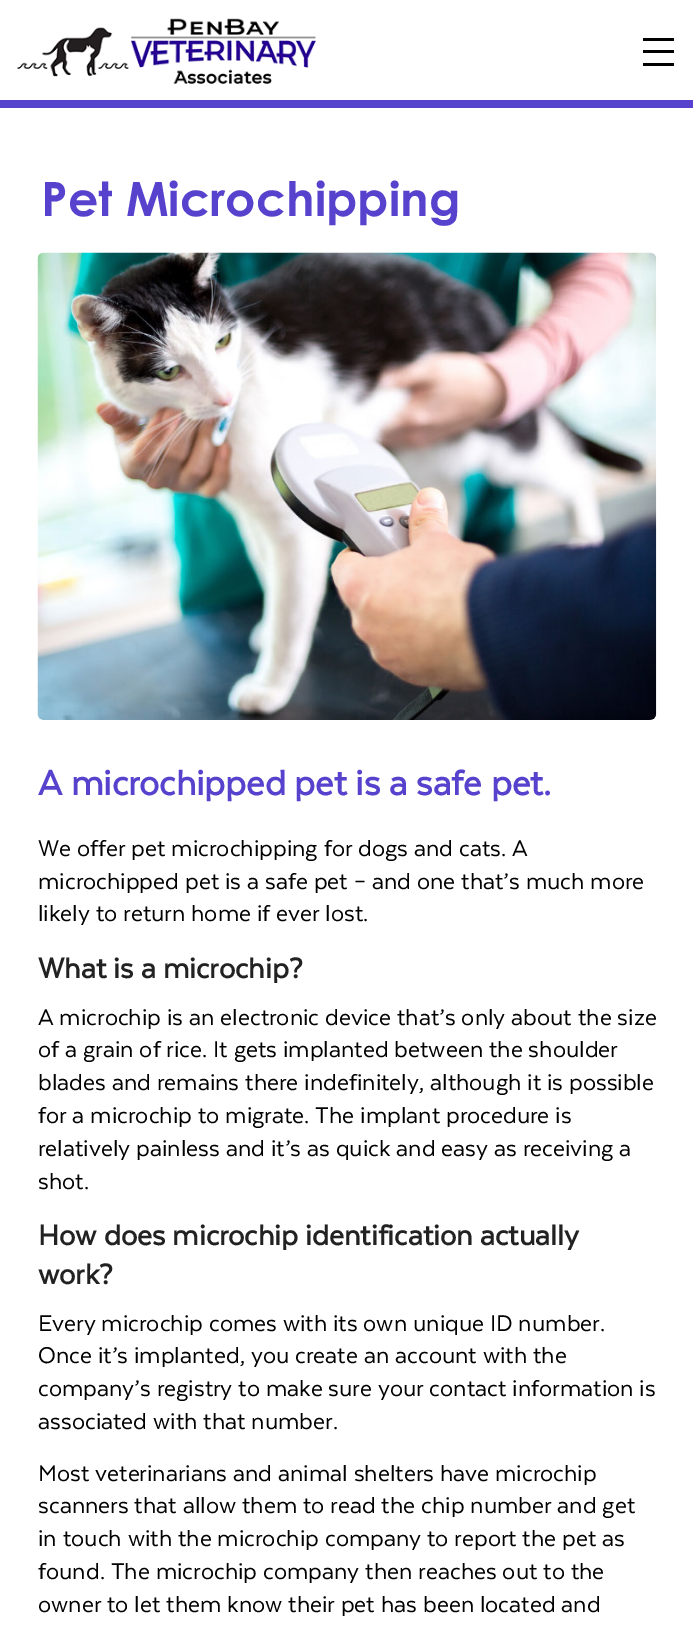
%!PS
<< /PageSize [693 1639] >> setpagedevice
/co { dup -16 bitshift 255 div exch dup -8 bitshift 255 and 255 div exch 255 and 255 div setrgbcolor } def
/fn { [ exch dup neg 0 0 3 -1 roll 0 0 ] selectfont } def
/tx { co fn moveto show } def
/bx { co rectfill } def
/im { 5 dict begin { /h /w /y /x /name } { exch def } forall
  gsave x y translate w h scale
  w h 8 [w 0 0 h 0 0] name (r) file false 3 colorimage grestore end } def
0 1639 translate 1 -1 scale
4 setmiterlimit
0 0 693 1639 16#FFFFFF bx
0 100 693 8 16#5642CD bx
(media/1.raw) 17 18 299 66 im
643 50 31 3 16#000000 bx
643 38 31 3 16#000000 bx
643 63 31 3 16#000000 bx
(media/2.raw) 37 252 620 468 im
(Pet Microchipping) 41 216 /CenturyGothic-Bold 47.5 16#5642CD tx
(A microchipped pet is a safe pet.) 38 795 /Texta-Bold 40 16#5642CD tx
(We offer pet microchipping for dogs and cats. A) 38 856 /Texta-Regular 26.25 16#000000 tx
(microchipped pet is a safe pet – and one that’s much more) 38 889 /Texta-Regular 26.25 16#000000 tx
(likely to return home if ever lost.) 38 921 /Texta-Regular 26.25 16#000000 tx
(What is a microchip?) 38 978 /Texta-Bold 32.5 16#222222 tx
(A microchip is an electronic device that’s only about the size) 38 1025 /Texta-Regular 26.25 16#000000 tx
(of a grain of rice. It gets implanted between the shoulder) 38 1057 /Texta-Regular 26.25 16#000000 tx
(blades and remains there indefinitely, although it is possible) 38 1090 /Texta-Regular 26.25 16#000000 tx
(for a microchip to migrate. The implant procedure is) 38 1123 /Texta-Regular 26.25 16#000000 tx
(relatively painless and it’s as quick and easy as receiving a) 38 1156 /Texta-Regular 26.25 16#000000 tx
(shot.) 38 1189 /Texta-Regular 26.25 16#000000 tx
(How does microchip identification actually) 38 1245 /Texta-Bold 32.5 16#222222 tx
(work?) 38 1284 /Texta-Bold 32.5 16#222222 tx
(Every microchip comes with its own unique ID number.) 38 1331 /Texta-Regular 26.25 16#000000 tx
(Once it’s implanted, you create an account with the) 38 1363 /Texta-Regular 26.25 16#000000 tx
(company’s registry to make sure your contact information is) 38 1396 /Texta-Regular 26.25 16#000000 tx
(associated with that number.) 38 1429 /Texta-Regular 26.25 16#000000 tx
(Most veterinarians and animal shelters have microchip) 38 1481 /Texta-Regular 26.25 16#000000 tx
(scanners that allow them to read the chip number and get) 38 1513 /Texta-Regular 26.25 16#000000 tx
(in touch with the microchip company to report the pet as) 38 1546 /Texta-Regular 26.25 16#000000 tx
(found. The microchip company then reaches out to the) 38 1579 /Texta-Regular 26.25 16#000000 tx
(owner to let them know their pet has been located and) 38 1612 /Texta-Regular 26.25 16#000000 tx
showpage
